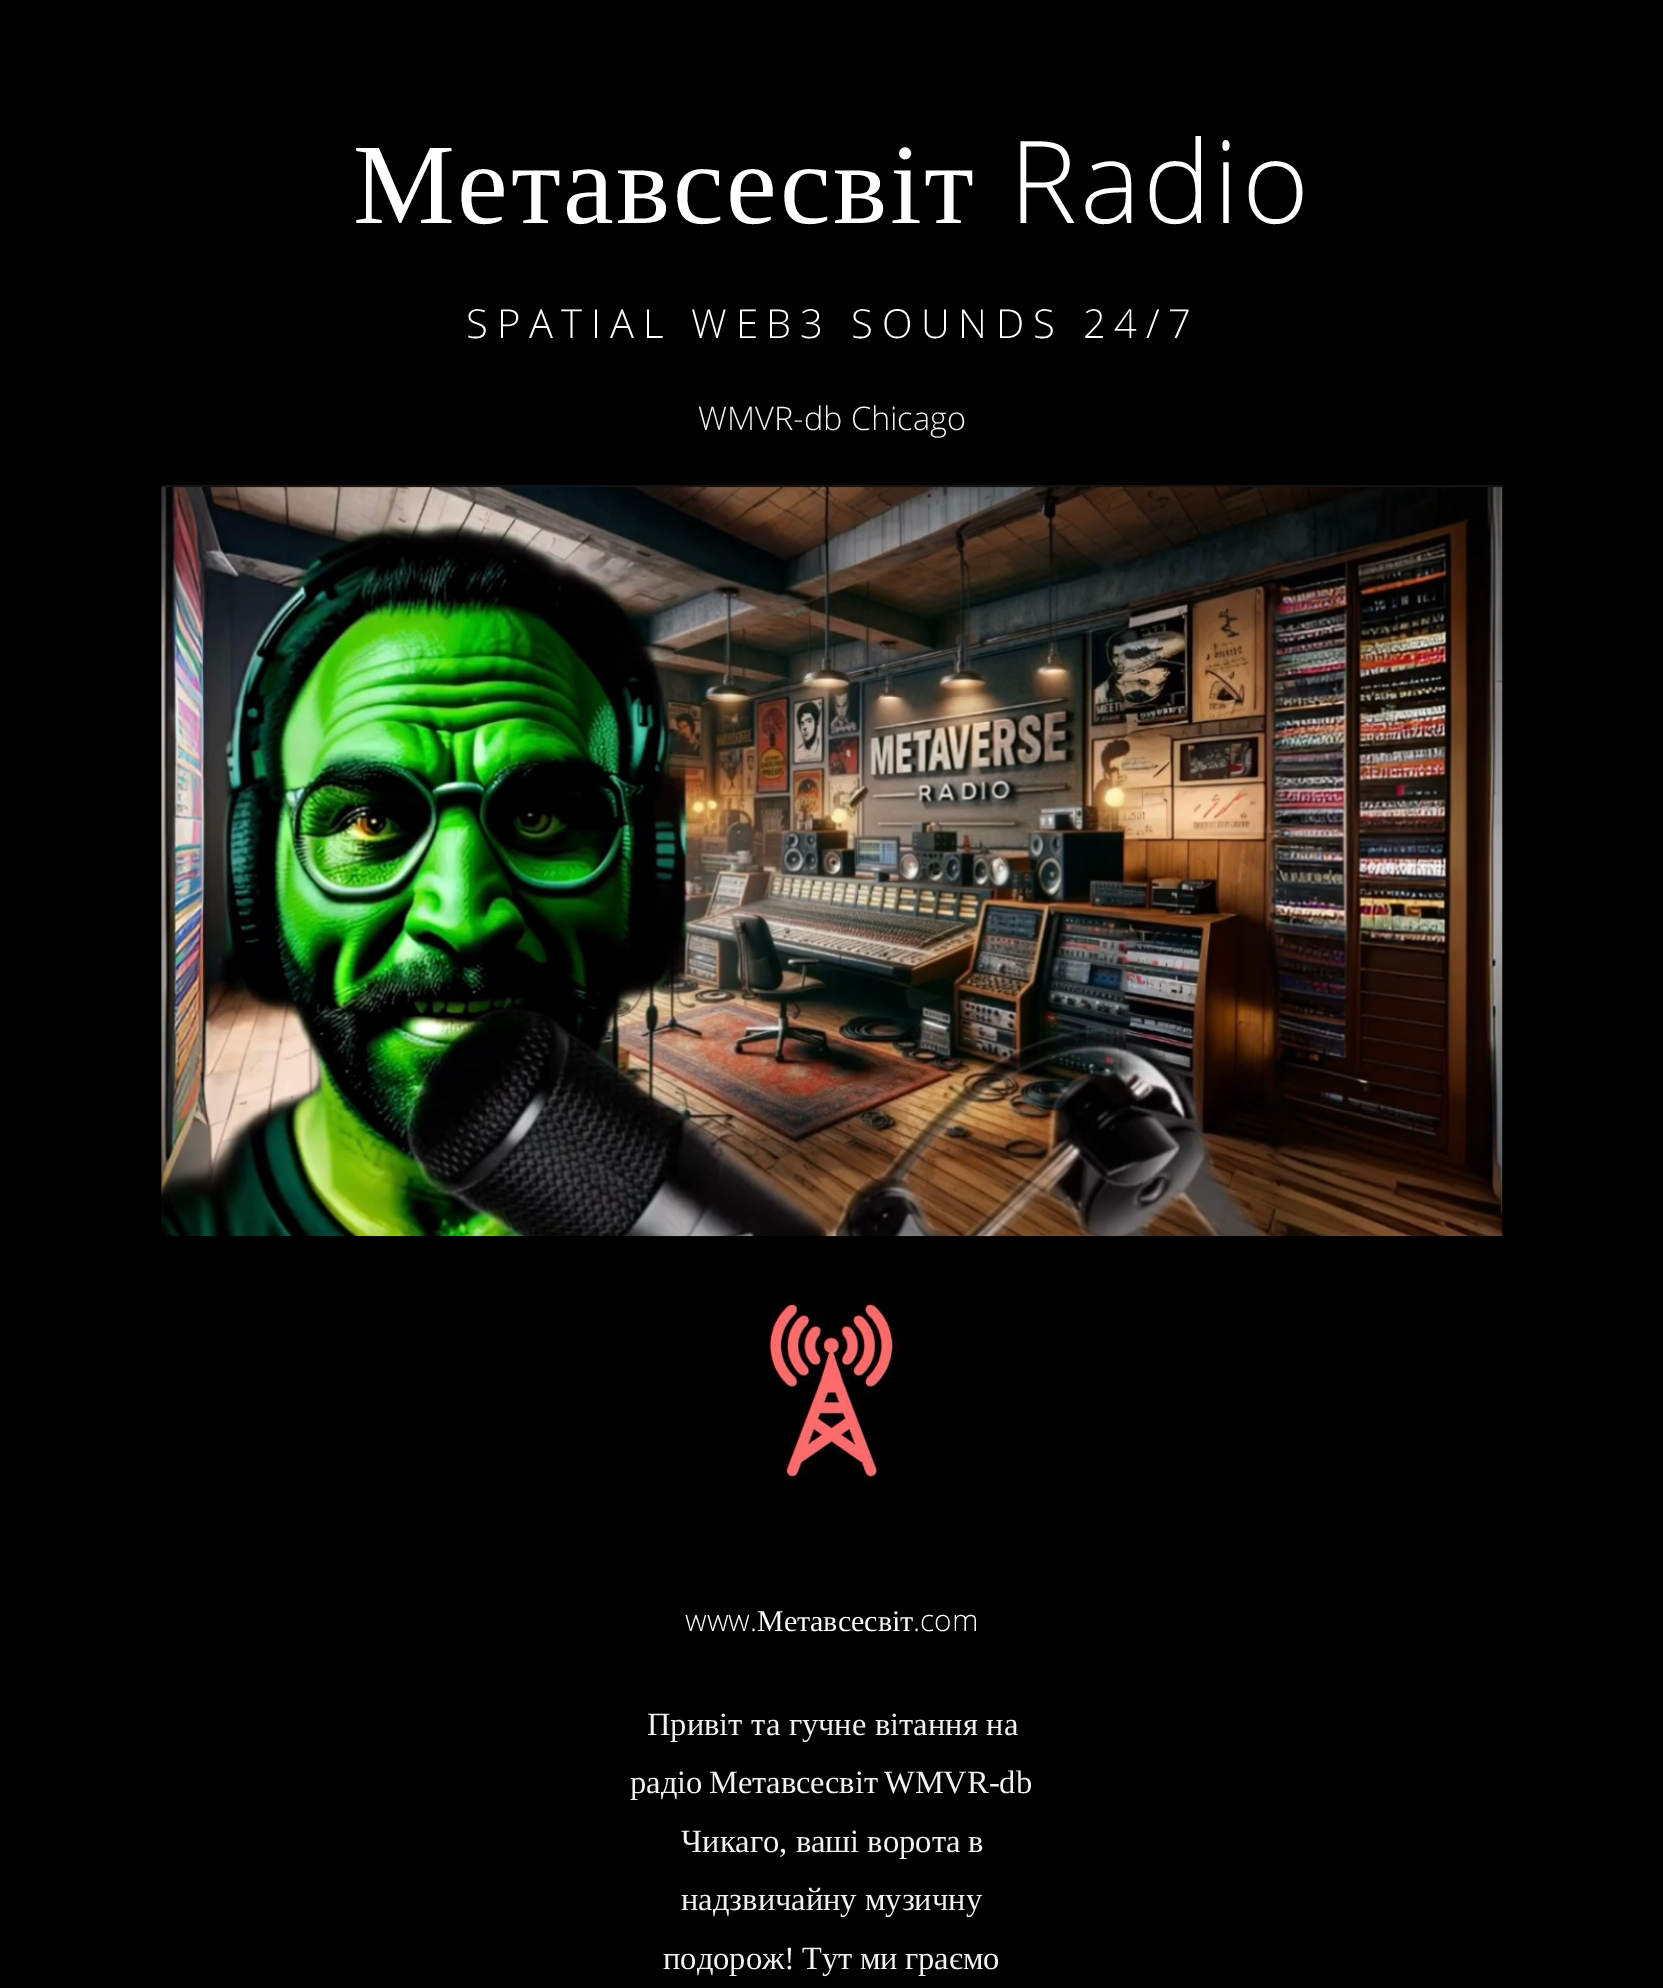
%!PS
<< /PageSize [1663 1988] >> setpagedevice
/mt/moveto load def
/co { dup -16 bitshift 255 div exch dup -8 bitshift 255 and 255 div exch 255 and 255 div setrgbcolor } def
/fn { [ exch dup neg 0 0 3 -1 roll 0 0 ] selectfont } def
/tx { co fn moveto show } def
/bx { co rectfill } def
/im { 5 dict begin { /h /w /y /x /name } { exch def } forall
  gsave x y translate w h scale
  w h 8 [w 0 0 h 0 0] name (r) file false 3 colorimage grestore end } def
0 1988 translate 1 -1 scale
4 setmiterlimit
0 0 1663 1988 16#000000 bx
(media/1.raw) 161 485 1342 752 im
(media/2.raw) 769 1300 135 189 im
/LiberationSerif-Regular 114.5 fn
16#FFFFFF co
353 223 mt 2.5 0 (Метавсесвіт) ashow
/OpenSans-Light 114.5 fn
1009 223 mt 2.5 0 (Radio) ashow
/OpenSans-Light 40 fn
466 338 mt 8.75 0 (SPATIAL WEB3 SOUNDS 24/7) ashow
(WMVR-db Chicago) 698 430 /OpenSans-Light 32.5 16#F2F2F2 tx
(www.) 685 1631 /OpenSans-Light 30 16#FFFFFF tx
(Метавсесвіт) 757 1631 /LiberationSerif-Regular 30 16#FFFFFF tx
(.com) 913 1631 /OpenSans-Light 30 16#FFFFFF tx
/LiberationSerif-Regular 32.5 fn
16#F2F2F2 co
647 1735 mt .5 0 32 (Привіт та гучне вітання на) widthshow
630 1793 mt -2 0 32 (радіо Метавсесвіт WMVR-db) widthshow
(Чикаго, ваші ворота в) 681 1852 /LiberationSerif-Regular 32.5 16#F2F2F2 tx
(надзвичайну музичну) 681 1910 /LiberationSerif-Regular 32.5 16#F2F2F2 tx
663 1969 mt -1 0 32 (подорож! Тут ми граємо) widthshow
showpage
